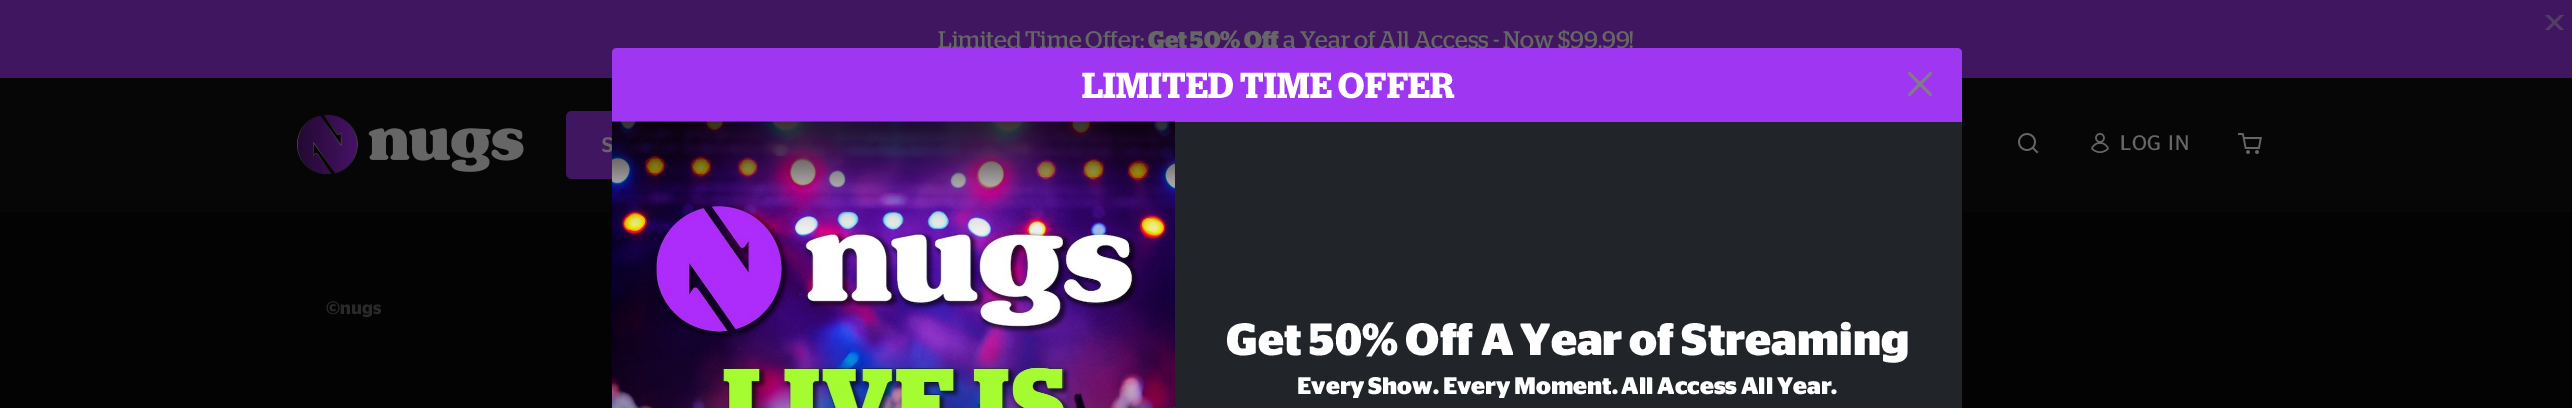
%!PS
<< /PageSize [2572 408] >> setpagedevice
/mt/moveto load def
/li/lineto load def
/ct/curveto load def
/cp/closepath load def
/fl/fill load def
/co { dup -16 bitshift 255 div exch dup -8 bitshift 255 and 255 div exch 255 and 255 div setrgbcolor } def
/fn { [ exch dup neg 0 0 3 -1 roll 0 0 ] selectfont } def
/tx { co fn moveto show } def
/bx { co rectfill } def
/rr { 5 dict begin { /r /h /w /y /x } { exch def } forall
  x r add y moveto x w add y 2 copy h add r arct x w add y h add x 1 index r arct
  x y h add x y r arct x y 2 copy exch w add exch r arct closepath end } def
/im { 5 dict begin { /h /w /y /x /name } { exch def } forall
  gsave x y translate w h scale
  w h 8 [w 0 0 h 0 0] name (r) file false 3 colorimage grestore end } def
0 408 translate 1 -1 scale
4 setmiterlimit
0 0 2572 408 16#030303 bx
0 0 2572 78 16#401661 bx
(media/1.raw) 2545 15 19 15 im
0 78 2572 134 16#060606 bx
(media/2.raw) 297 114 227 60 im
16#401661 co
566 111 265 68 6 rr fl
(media/3.raw) 2018 133 21 21 im
(media/4.raw) 2091 133 18 20 im
(media/5.raw) 2238 133 24 21 im
1175 122 787 286 16#212529 bx
(Limited Time Offer:) 938 48 /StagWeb-Regular 24 16#666666 tx
(Get 50% Off) 1148 48 /StagWeb-Bold 24 16#666666 tx
(a Year of All Access - Now $99.99!) 1283 48 /StagWeb-Regular 24 16#666666 tx
/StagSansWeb-Medium 21 fn
602 152 mt .5 0 (S) ashow
/StagSansWeb-Regular 21 fn
2120 150 mt .5 0 (LOG IN) ashow
(©nugs) 326 314 /StagSansWeb-SemiBold 18 16#292929 tx
16#9F37F2 co
617 48 mt 1957 48 li 1960 48 1962 50 1962 53 ct 1962 122 li 612 122 li 612 53 li 612 50 614 48 617 48 ct cp fl
/StagWeb-SemiBold 36 fn
16#FFFFFF co
1082 98 mt .4 0 (LIMITED TIME OFFER) ashow
(media/6.raw) 1908 72 24 24 im
(media/7.raw) 611 121 564 287 im
(Get 50% Off A Year of Streaming) 1226 355 /StagSansWeb-Bold 45 16#FFFFFF tx
(Every Show. Every Moment. All Access All Year.) 1297 394 /StagSansWeb-Bold 24 16#FFFFFF tx
showpage
